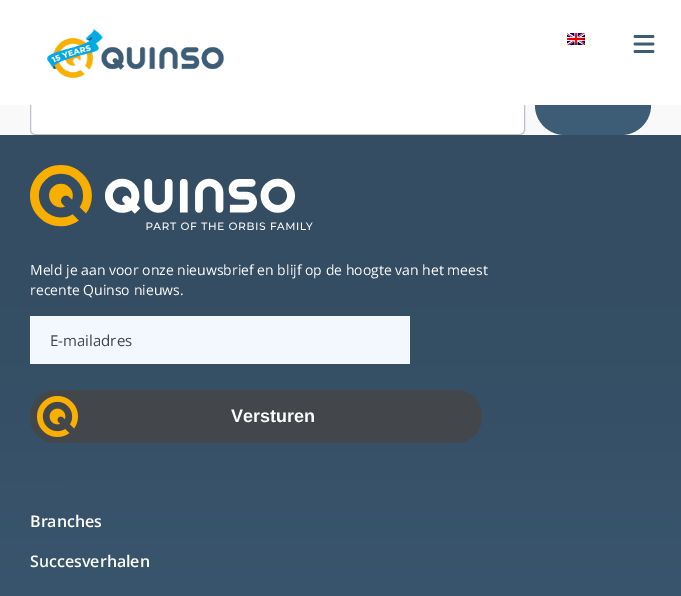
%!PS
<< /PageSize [681 596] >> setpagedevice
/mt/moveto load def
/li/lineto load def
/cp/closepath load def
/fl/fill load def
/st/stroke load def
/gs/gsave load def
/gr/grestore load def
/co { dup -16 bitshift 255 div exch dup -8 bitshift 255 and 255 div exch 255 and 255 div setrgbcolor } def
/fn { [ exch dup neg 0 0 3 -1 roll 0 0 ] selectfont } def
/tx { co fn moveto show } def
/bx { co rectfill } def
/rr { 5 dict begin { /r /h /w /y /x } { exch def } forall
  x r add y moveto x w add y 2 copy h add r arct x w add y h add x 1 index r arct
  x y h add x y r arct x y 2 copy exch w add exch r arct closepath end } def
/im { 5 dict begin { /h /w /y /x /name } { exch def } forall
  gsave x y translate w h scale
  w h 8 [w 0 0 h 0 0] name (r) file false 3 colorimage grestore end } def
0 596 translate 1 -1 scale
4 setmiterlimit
0 0 681 596 16#FFFFFF bx
gs 0 105 mt 681 105 li 681 135 li 0 135 li cp clip newpath
<< /ShadingType 2 /ColorSpace /DeviceRGB /Coords [340 0 341 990] /Extend [true true] /Function << /FunctionType 3 /Domain [0 1] /Functions [<< /FunctionType 2 /Domain [0 1] /C0 [.976 .976 .98] /C1 [.976 .976 .98] /N 1 >> << /FunctionType 2 /Domain [0 1] /C0 [.976 .976 .98] /C1 [1 1 1] /N 1 >> << /FunctionType 2 /Domain [0 1] /C0 [1 1 1] /C1 [1 1 1] /N 1 >>] /Bounds [.29 .45] /Encode [0 1 0 1 0 1] >> >> shfill gr
30.5 72.5 494 62 4.5 rr gs fl gr
16#BBC2CB co
st
16#3D5C76 co
535 72 116 63 30 rr fl
30 72 621 33 16#FFFFFF bx
(media/1.raw) 47 29 178 49 im
(media/2.raw) 567 33 18 12 im
(media/3.raw) 633 35 22 18 im
gs 0 135 mt 681 135 li 681 596 li 0 596 li cp clip newpath
<< /ShadingType 2 /ColorSpace /DeviceRGB /Coords [340 135 341 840] /Extend [true true] /Function << /FunctionType 3 /Domain [0 1] /Functions [<< /FunctionType 2 /Domain [0 1] /C0 [.204 .302 .384] /C1 [.204 .302 .384] /N 1 >> << /FunctionType 2 /Domain [0 1] /C0 [.204 .302 .384] /C1 [.239 .361 .463] /N 1 >>] /Bounds [.21] /Encode [0 1 0 1] >> >> shfill gr
(media/4.raw) 30 165 283 65 im
30 316 380 48 16#F3F7FE bx
16#43474B co
30 390 452 53 26 rr fl
(media/5.raw) 37 396 41 41 im
(Meld je aan voor onze nieuwsbrief en blijf op de hoogte van het meest) 30 275 /OpenSans-Regular 14 16#FFFFFF tx
(recente Quinso nieuws.) 30 295 /OpenSans-Regular 14 16#FFFFFF tx
(E-mailadres) 50 346 /OpenSans-Regular 15 16#43474B tx
(Versturen) 231 422 /LiberationSans-Bold 18 16#FFFFFF tx
(Branches) 30 527 /OpenSans-SemiBold 16 16#FFFFFF tx
(Succesverhalen) 30 567 /OpenSans-SemiBold 16 16#FFFFFF tx
showpage
